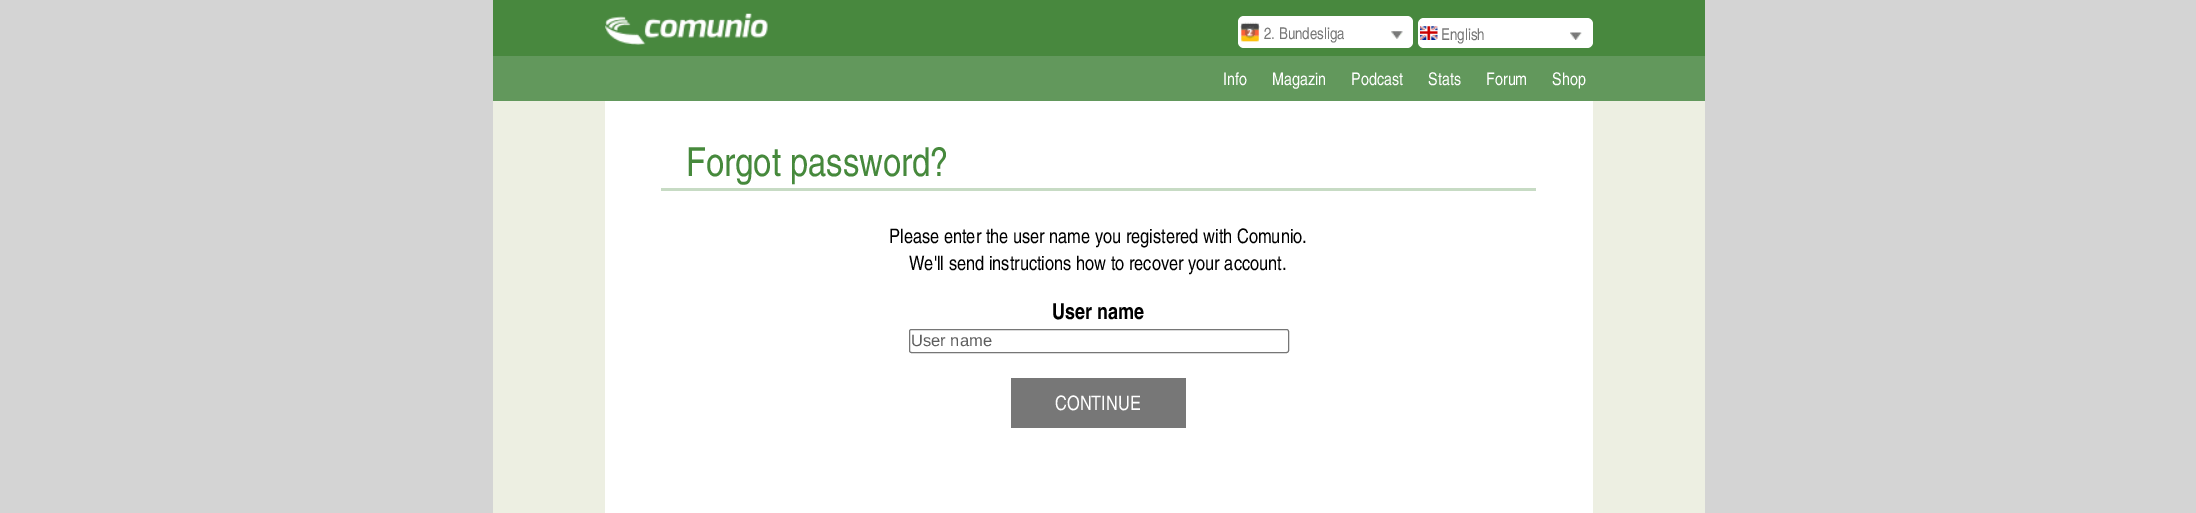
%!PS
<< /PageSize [2196 513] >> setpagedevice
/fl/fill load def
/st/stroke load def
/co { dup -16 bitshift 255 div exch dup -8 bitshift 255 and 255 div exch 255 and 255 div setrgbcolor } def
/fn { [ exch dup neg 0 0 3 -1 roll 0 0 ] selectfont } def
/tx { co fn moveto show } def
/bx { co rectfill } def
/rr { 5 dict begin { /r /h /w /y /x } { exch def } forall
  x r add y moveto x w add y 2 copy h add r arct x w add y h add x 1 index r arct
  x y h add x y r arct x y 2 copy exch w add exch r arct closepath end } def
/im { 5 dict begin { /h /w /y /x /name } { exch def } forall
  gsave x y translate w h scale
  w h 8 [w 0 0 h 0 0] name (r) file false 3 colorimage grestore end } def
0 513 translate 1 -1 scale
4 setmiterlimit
0 0 2196 513 16#D4D4D4 bx
493 0 1212 56 16#48883E bx
(media/1.raw) 605 13 163 32 im
16#FFFFFF co
1238 16 175 32 6 rr fl
(media/2.raw) 1240 22 20 20 im
(media/3.raw) 1391 31 12 8 im
1418 18 175 30 6 rr fl
(media/4.raw) 1420 26 18 14 im
(media/5.raw) 1570 32 12 8 im
493 56 1212 45 16#62985C bx
493 101 1212 412 16#EDEFE2 bx
605 101 988 412 16#FFFFFF bx
661 188 875 3 16#C7DBC4 bx
16#767676 co
909.5 329.5 379 23 2 rr st
1011 378 175 50 16#777777 bx
(2. Bundesliga) 1264 39 /TeXGyreHerosCn-Regular 16.25 16#777777 tx
(English) 1441 40 /TeXGyreHerosCn-Regular 16.25 16#777777 tx
(Info) 1223 85 /TeXGyreHerosCn-Regular 17.5 16#FFFFFF tx
(Magazin) 1272 85 /TeXGyreHerosCn-Regular 17.5 16#FFFFFF tx
(Podcast) 1351 85 /TeXGyreHerosCn-Regular 17.5 16#FFFFFF tx
(Stats) 1428 85 /TeXGyreHerosCn-Regular 17.5 16#FFFFFF tx
(Forum) 1486 85 /TeXGyreHerosCn-Regular 17.5 16#FFFFFF tx
(Shop) 1552 85 /TeXGyreHerosCn-Regular 17.5 16#FFFFFF tx
(Forgot password?) 686 176 /TeXGyreHerosCn-Regular 40 16#46893C tx
(Please enter the user name you registered with Comunio.) 889 243 /TeXGyreHerosCn-Regular 20 16#000000 tx
(We'll send instructions how to recover your account.) 909 270 /TeXGyreHerosCn-Regular 20 16#000000 tx
(User name) 1052 319 /TeXGyreHerosCn-Bold 22 16#000000 tx
(User name) 911 346 /LiberationSans-Regular 16.5 16#5D5D5D tx
(CONTINUE) 1055 410 /TeXGyreHerosCn-Regular 20 16#FFFFFF tx
showpage
